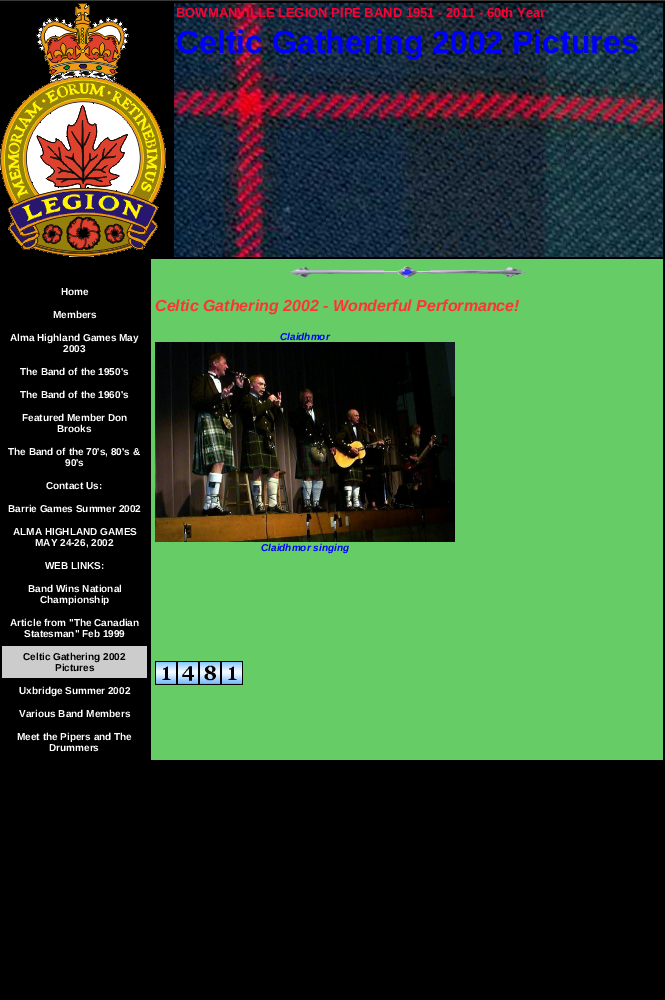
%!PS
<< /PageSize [665 1000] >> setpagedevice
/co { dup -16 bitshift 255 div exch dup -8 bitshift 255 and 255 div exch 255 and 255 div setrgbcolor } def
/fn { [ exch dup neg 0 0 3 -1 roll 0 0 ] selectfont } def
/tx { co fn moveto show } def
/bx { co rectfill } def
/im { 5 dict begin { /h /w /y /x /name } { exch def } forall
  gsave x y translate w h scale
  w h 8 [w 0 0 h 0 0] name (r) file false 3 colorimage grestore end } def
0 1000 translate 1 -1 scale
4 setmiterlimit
0 0 665 1000 16#000000 bx
0 0 665 1 16#393939 bx
(media/1.raw) 0 3 166 254 im
(media/2.raw) 174 3 489 254 im
2 646 145 32 16#CCCCCC bx
151 259 512 501 16#66CC66 bx
(media/3.raw) 289 266 236 12 im
(media/4.raw) 155 342 300 200 im
(media/5.raw) 155 661 22 24 im
(media/6.raw) 177 661 22 24 im
(media/7.raw) 199 661 22 24 im
(media/5.raw) 221 661 22 24 im
(BOWMANVILLE LEGION PIPE BAND 1951 - 2011 - 60th Year) 176 17 /LiberationSans-Bold 13 16#FF0033 tx
(Celtic Gathering 2002 Pictures) 176 53 /LiberationSans-Bold 32 16#0000FF tx
(Home) 61 295 /LiberationSans-Bold 10 16#FFFFFF tx
(Members) 53 318 /LiberationSans-Bold 10 16#FFFFFF tx
(Alma Highland Games May) 10 341 /LiberationSans-Bold 10 16#FFFFFF tx
(2003) 63 352 /LiberationSans-Bold 10 16#FFFFFF tx
(The Band of the 1950's) 20 375 /LiberationSans-Bold 10 16#FFFFFF tx
(The Band of the 1960's) 20 398 /LiberationSans-Bold 10 16#FFFFFF tx
(Featured Member Don) 22 421 /LiberationSans-Bold 10 16#FFFFFF tx
(Brooks) 57 432 /LiberationSans-Bold 10 16#FFFFFF tx
(The Band of the 70's, 80's &) 8 455 /LiberationSans-Bold 10 16#FFFFFF tx
(90's) 65 466 /LiberationSans-Bold 10 16#FFFFFF tx
(Contact Us:) 46 489 /LiberationSans-Bold 10 16#FFFFFF tx
(Barrie Games Summer 2002) 8 512 /LiberationSans-Bold 10 16#FFFFFF tx
(ALMA HIGHLAND GAMES) 13 535 /LiberationSans-Bold 10 16#FFFFFF tx
(MAY 24-26, 2002) 35 546 /LiberationSans-Bold 10 16#FFFFFF tx
(WEB LINKS:) 45 569 /LiberationSans-Bold 10 16#FFFFFF tx
(Band Wins National) 28 592 /LiberationSans-Bold 10 16#FFFFFF tx
(Championship) 40 603 /LiberationSans-Bold 10 16#FFFFFF tx
(Article from "The Canadian) 10 626 /LiberationSans-Bold 10 16#FFFFFF tx
(Statesman" Feb 1999) 24 637 /LiberationSans-Bold 10 16#FFFFFF tx
(Celtic Gathering 2002) 23 660 /LiberationSans-Bold 10 16#000000 tx
(Pictures) 55 671 /LiberationSans-Bold 10 16#000000 tx
(Uxbridge Summer 2002) 19 694 /LiberationSans-Bold 10 16#FFFFFF tx
(Various Band Members) 19 717 /LiberationSans-Bold 10 16#FFFFFF tx
(Meet the Pipers and The) 17 740 /LiberationSans-Bold 10 16#FFFFFF tx
(Drummers) 49 751 /LiberationSans-Bold 10 16#FFFFFF tx
(Celtic Gathering 2002 - Wonderful Performance!) 155 311 /LiberationSans-BoldItalic 16 16#FF3333 tx
(Claidhmor) 280 340 /LiberationSans-BoldItalic 10 16#0000FF tx
(Claidhmor singing) 261 551 /LiberationSans-BoldItalic 10 16#0000FF tx
showpage
